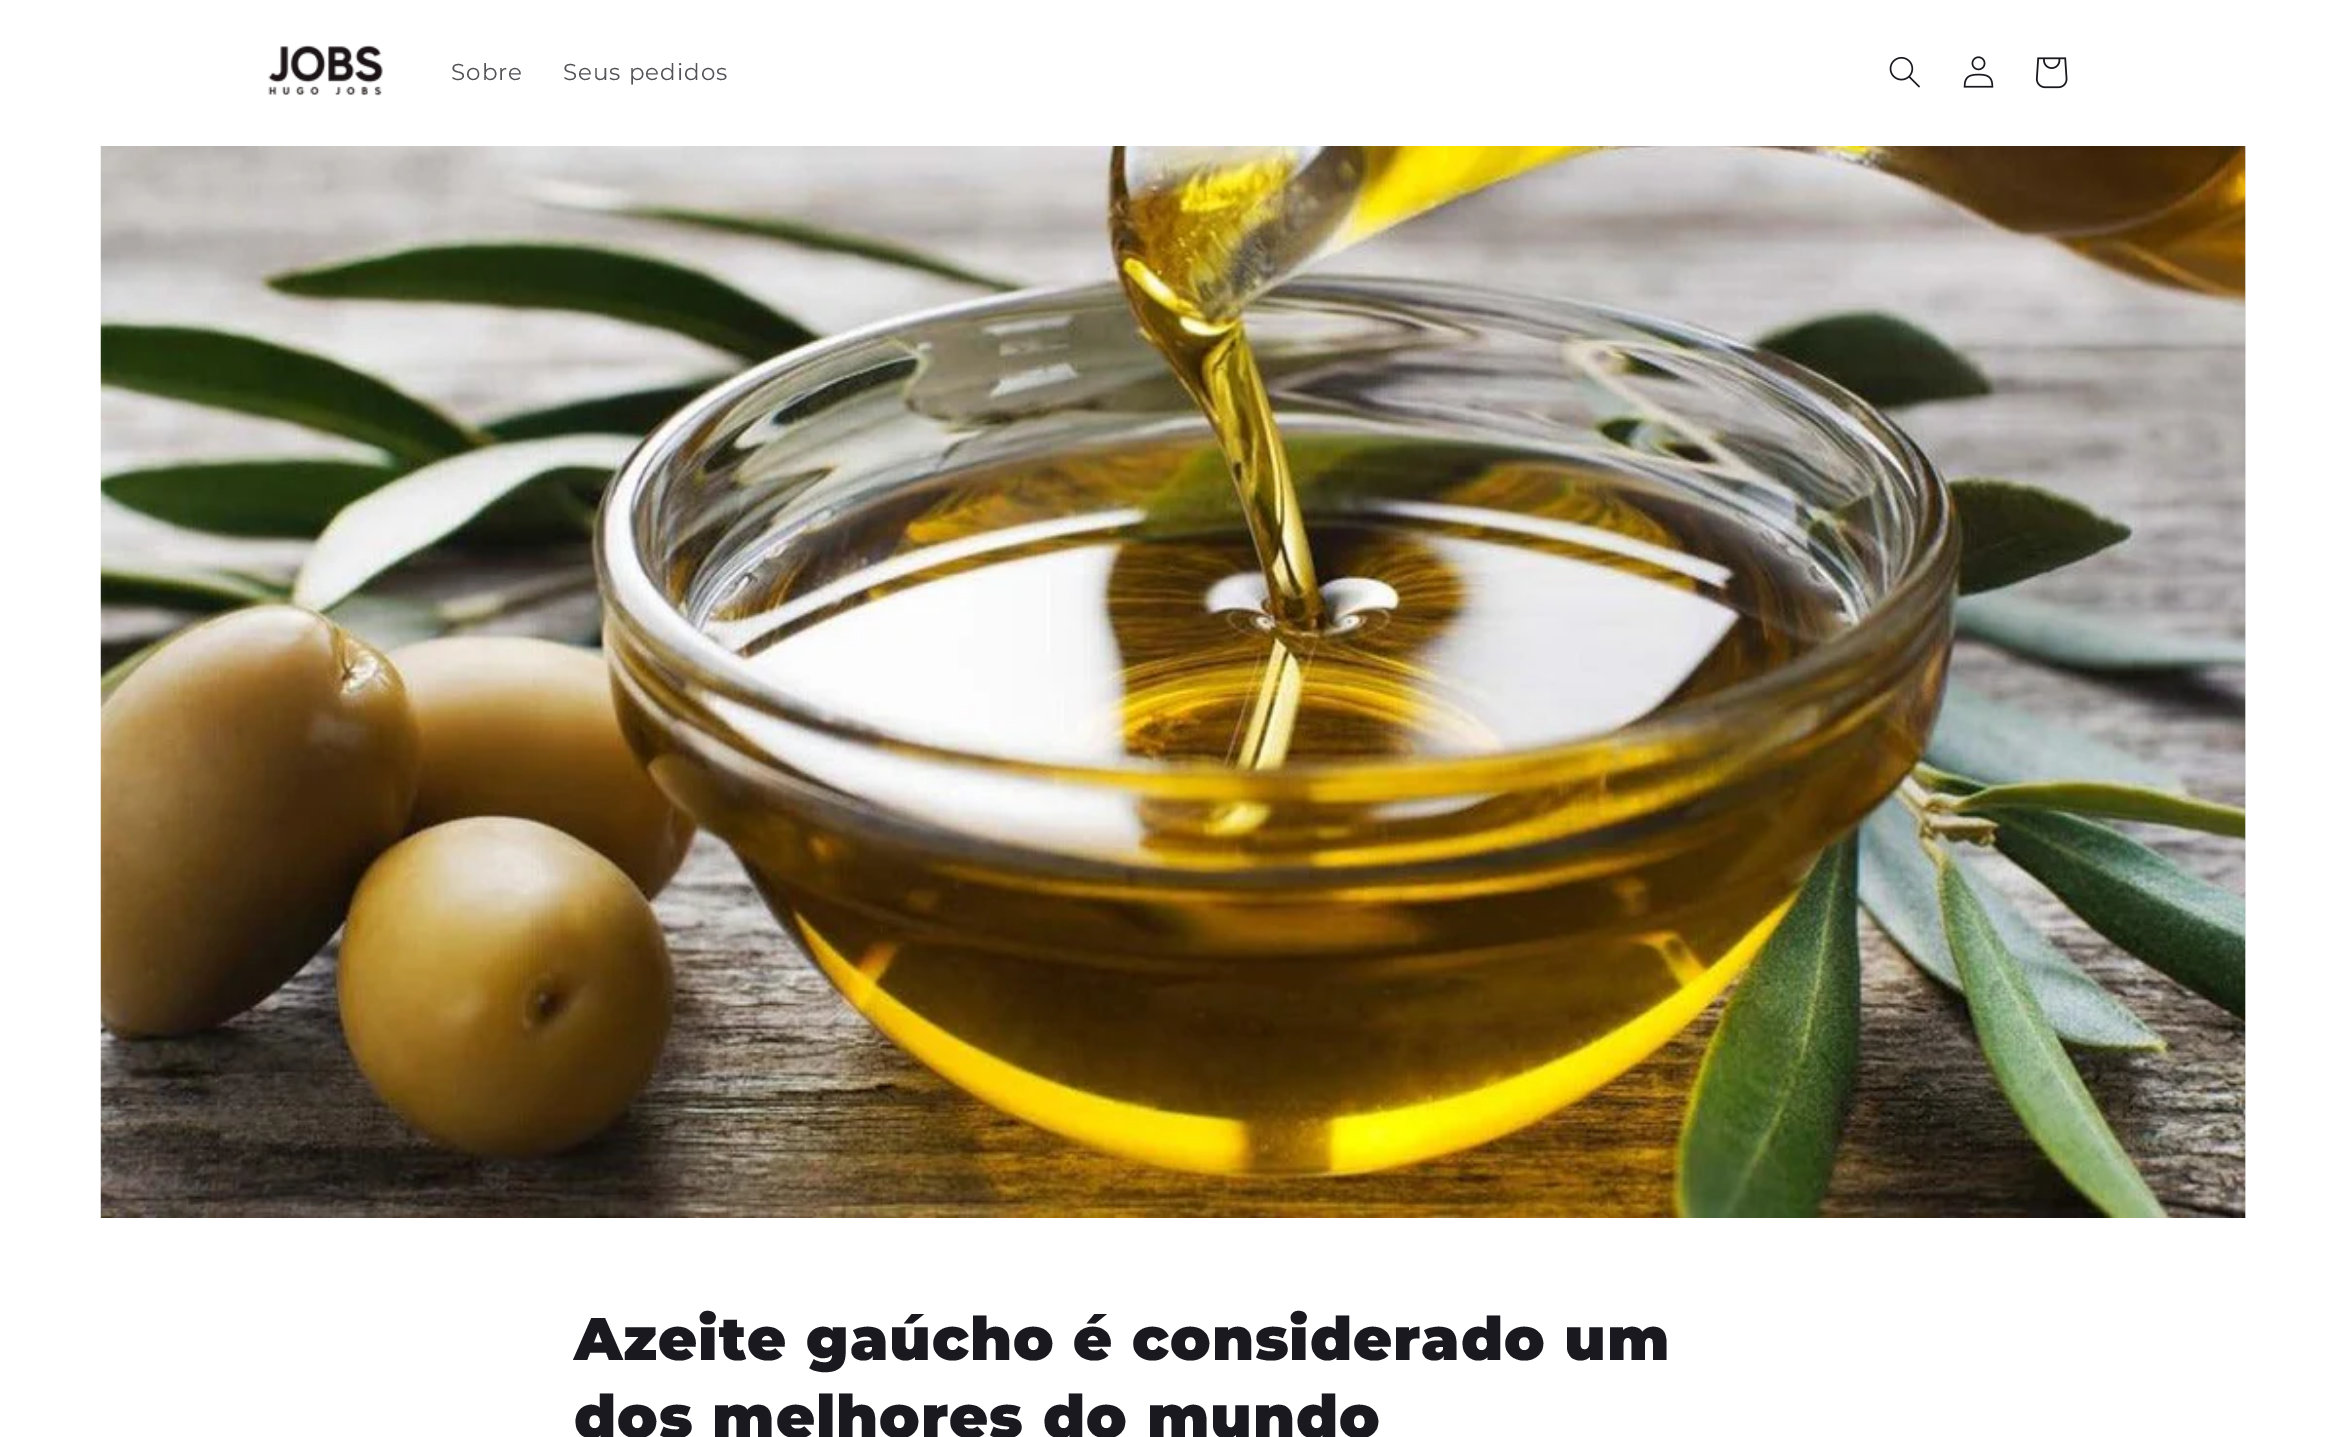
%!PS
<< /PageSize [2345 1437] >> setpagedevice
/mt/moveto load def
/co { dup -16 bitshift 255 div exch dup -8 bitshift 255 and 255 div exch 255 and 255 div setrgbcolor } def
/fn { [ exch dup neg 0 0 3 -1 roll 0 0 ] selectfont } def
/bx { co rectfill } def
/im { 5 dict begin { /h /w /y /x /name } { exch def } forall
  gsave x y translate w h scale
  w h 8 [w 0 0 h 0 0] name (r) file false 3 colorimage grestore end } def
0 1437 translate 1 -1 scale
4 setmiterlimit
0 0 2345 1437 16#FFFFFF bx
(media/1.raw) 268 45 115 51 im
(media/2.raw) 1889 56 31 32 im
(media/3.raw) 1963 56 31 32 im
(media/4.raw) 2035 57 33 32 im
2245 146 1 1072 16#E9E9E9 bx
(media/5.raw) 100 146 2146 1072 im
/Montserrat-Regular 23 fn
16#535357 co
451 80 mt 1 0 (Sobre) ashow
563 80 mt 1 0 (Seus pedidos) ashow
/Montserrat-Black 60 fn
16#19191F co
574 1360 mt .9 0 (Azeite gaúcho é considerado um) ashow
574 1438 mt .9 0 (dos melhores do mundo) ashow
showpage
